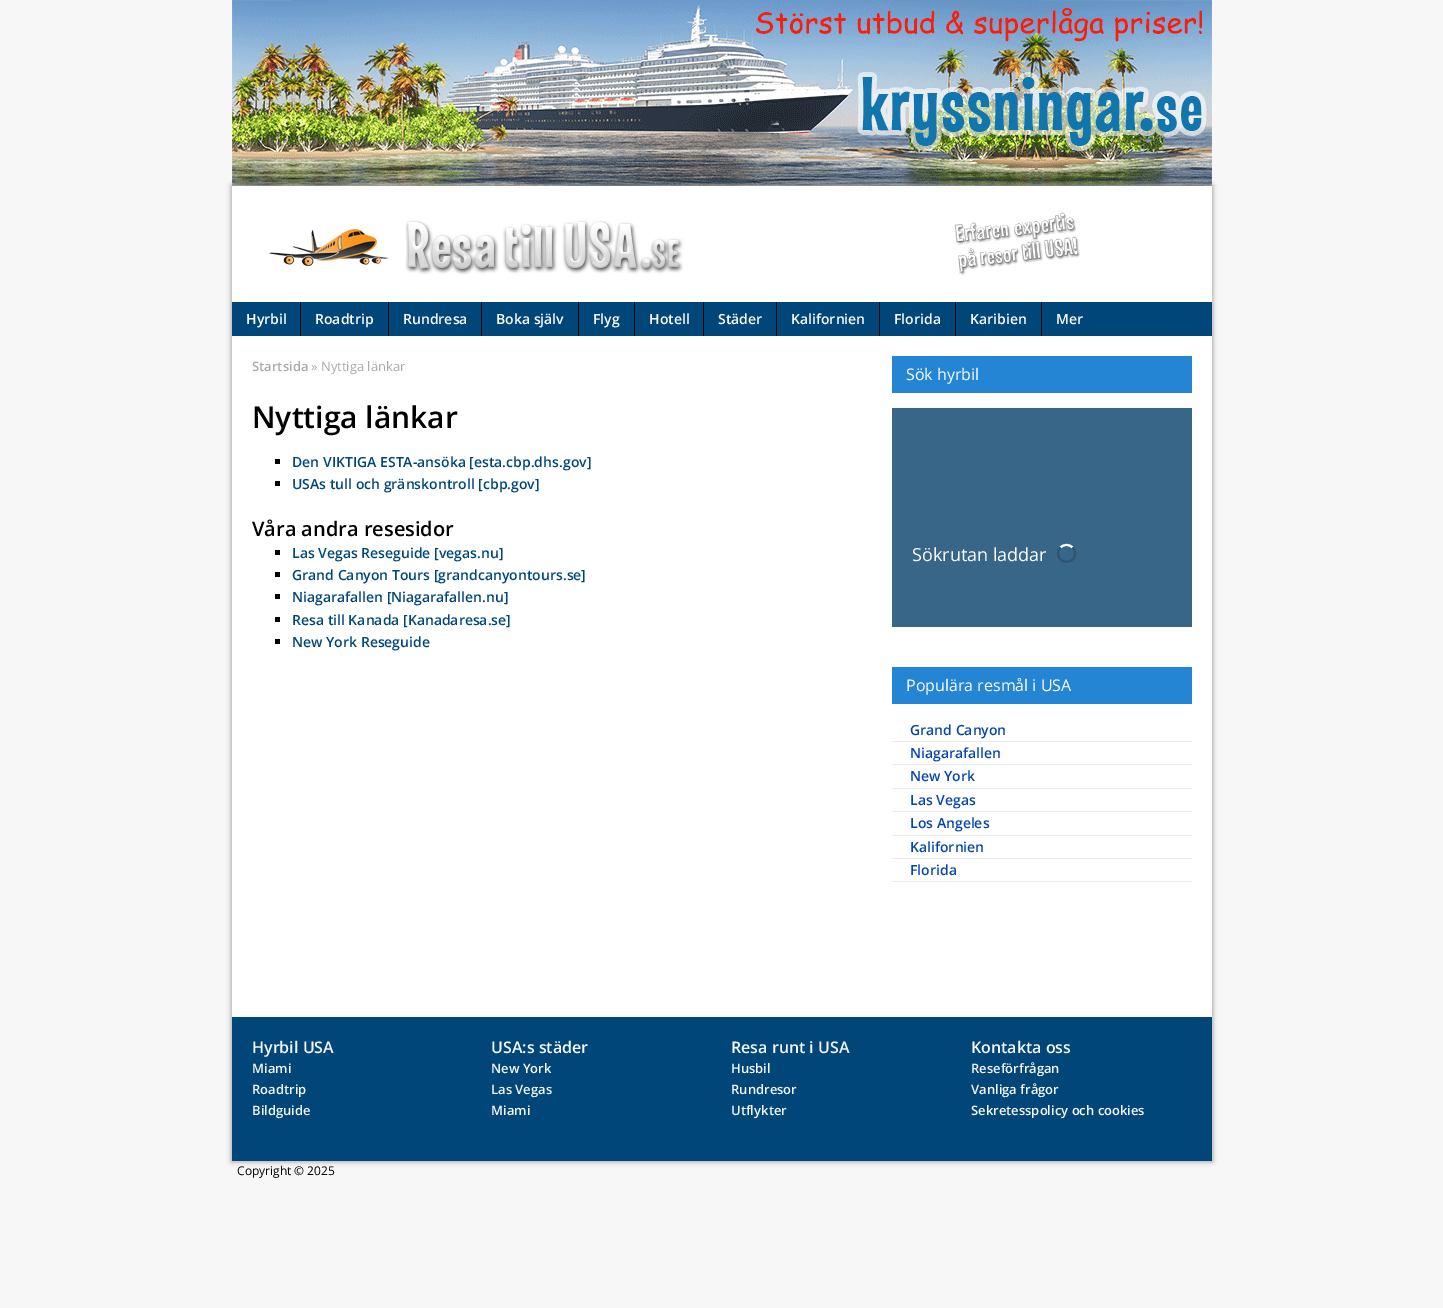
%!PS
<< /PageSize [1443 1308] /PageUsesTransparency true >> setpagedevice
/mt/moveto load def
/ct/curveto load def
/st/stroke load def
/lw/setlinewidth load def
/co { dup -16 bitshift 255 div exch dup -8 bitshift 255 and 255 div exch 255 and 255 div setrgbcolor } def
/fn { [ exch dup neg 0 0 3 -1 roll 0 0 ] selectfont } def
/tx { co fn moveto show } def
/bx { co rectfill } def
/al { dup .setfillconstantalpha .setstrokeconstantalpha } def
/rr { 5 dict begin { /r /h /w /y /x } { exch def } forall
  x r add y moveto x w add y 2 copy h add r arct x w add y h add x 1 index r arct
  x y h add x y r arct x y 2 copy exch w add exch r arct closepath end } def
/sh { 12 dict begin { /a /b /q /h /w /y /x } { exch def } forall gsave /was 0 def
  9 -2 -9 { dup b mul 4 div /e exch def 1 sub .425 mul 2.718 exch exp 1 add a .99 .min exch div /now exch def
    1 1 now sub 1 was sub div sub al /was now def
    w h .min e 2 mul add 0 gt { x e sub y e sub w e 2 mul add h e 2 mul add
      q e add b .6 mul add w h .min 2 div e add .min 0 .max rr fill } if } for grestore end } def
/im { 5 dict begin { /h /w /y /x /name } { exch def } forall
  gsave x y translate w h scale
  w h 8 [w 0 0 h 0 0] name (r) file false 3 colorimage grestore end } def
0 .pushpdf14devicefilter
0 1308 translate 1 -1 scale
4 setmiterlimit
0 0 1443 1308 16#F7F7F7 bx
(media/1.raw) 232 0 980 186 im
16#A8A8A8 co
231 185 982 977 0 2.5 1 sh
232 186 980 116 16#FFFFFF bx
(media/2.raw) 269 212 811 63 im
232 302 980 34 16#004679 bx
300 302 1 34 16#000000 bx
388 302 1 34 16#000000 bx
481 302 1 34 16#000000 bx
578 302 1 34 16#000000 bx
634 302 1 34 16#000000 bx
703 302 1 34 16#000000 bx
776 302 1 34 16#000000 bx
879 302 1 34 16#000000 bx
955 302 1 34 16#000000 bx
1041 302 1 34 16#000000 bx
232 336 980 681 16#FFFFFF bx
275 459 5 5 16#000000 bx
275 481 5 5 16#000000 bx
275 550 5 5 16#000000 bx
275 572 5 5 16#000000 bx
275 594 5 5 16#000000 bx
275 617 5 5 16#000000 bx
275 639 5 5 16#000000 bx
892 356 300 37 16#2485D4 bx
892 408 300 219 16#376689 bx
16#FFFFFF co
2 lw
1060.5 547.5 mt 1064 544 1069 544 1072.5 547.5 ct st
16#2E5472 co
1072.5 547.5 mt 1074.5 549.5 1075.5 552.5 1075 555 ct 1073 565 1058 563.5 1058 553.5 ct 1058 551.5 1059 549 1060.5 547.5 ct st
892 667 300 37 16#2485D4 bx
892 741 300 1 16#EBEBEB bx
892 764 300 1 16#EBEBEB bx
892 788 300 1 16#EBEBEB bx
892 811 300 1 16#EBEBEB bx
892 835 300 1 16#EBEBEB bx
892 858 300 1 16#EBEBEB bx
892 881 300 1 16#EBEBEB bx
232 1017 980 144 16#004679 bx
(Hyrbil) 246 324 /OpenSans-SemiBold 14 16#FFFFFF tx
(Roadtrip) 315 324 /OpenSans-SemiBold 14 16#FFFFFF tx
(Rundresa) 403 324 /OpenSans-SemiBold 14 16#FFFFFF tx
(Boka själv) 496 324 /OpenSans-SemiBold 14 16#FFFFFF tx
(Flyg) 593 324 /OpenSans-SemiBold 14 16#FFFFFF tx
(Hotell) 649 324 /OpenSans-SemiBold 14 16#FFFFFF tx
(Städer) 718 324 /OpenSans-SemiBold 14 16#FFFFFF tx
(Kalifornien) 791 324 /OpenSans-SemiBold 14 16#FFFFFF tx
(Florida) 894 324 /OpenSans-SemiBold 14 16#FFFFFF tx
(Karibien) 970 324 /OpenSans-SemiBold 14 16#FFFFFF tx
(Mer) 1056 324 /OpenSans-SemiBold 14 16#FFFFFF tx
(Startsida) 252 371 /OpenSans-SemiBold 13 16#AAAAAA tx
(» Nyttiga länkar) 311 371 /OpenSans-Regular 13 16#AAAAAA tx
(Nyttiga länkar) 252 428 /OpenSans-SemiBold 30 16#000000 tx
(Den VIKTIGA ESTA-ansöka [esta.cbp.dhs.gov]) 292 467 /OpenSans-SemiBold 14 16#004679 tx
(USAs tull och gränskontroll [cbp.gov]) 292 489 /OpenSans-SemiBold 14 16#004679 tx
(Våra andra resesidor) 252 536 /OpenSans-SemiBold 20 16#000000 tx
(Las Vegas Reseguide [vegas.nu]) 292 558 /OpenSans-SemiBold 14 16#004679 tx
(Grand Canyon Tours [grandcanyontours.se]) 292 580 /OpenSans-SemiBold 14 16#004679 tx
(Niagarafallen [Niagarafallen.nu]) 292 602 /OpenSans-SemiBold 14 16#004679 tx
(Resa till Kanada [Kanadaresa.se]) 292 625 /OpenSans-SemiBold 14 16#004679 tx
(New York Reseguide) 292 647 /OpenSans-SemiBold 14 16#004679 tx
(Sök hyrbil) 906 380 /OpenSans-Regular 16 16#FFFFFF tx
(Sökrutan laddar) 912 561 /OpenSans-Regular 18 16#FFFFFF tx
(Populära resmål i USA) 906 691 /OpenSans-Regular 16 16#FFFFFF tx
(Grand Canyon) 910 735 /OpenSans-SemiBold 14 16#0645AD tx
(Niagarafallen) 910 758 /OpenSans-SemiBold 14 16#0645AD tx
(New York) 910 781 /OpenSans-SemiBold 14 16#0645AD tx
(Las Vegas) 910 805 /OpenSans-SemiBold 14 16#0645AD tx
(Los Angeles) 910 828 /OpenSans-SemiBold 14 16#0645AD tx
(Kalifornien) 910 852 /OpenSans-SemiBold 14 16#0645AD tx
(Florida) 910 875 /OpenSans-SemiBold 14 16#0645AD tx
(Hyrbil USA) 252 1053 /OpenSans-SemiBold 16 16#F7F7F7 tx
(Miami) 252 1073 /OpenSans-SemiBold 13 16#F7F7F7 tx
(Roadtrip) 252 1094 /OpenSans-SemiBold 13 16#F7F7F7 tx
(Bildguide) 252 1115 /OpenSans-SemiBold 13 16#F7F7F7 tx
(USA:s städer) 491 1053 /OpenSans-SemiBold 16 16#F7F7F7 tx
(New York) 491 1073 /OpenSans-SemiBold 13 16#F7F7F7 tx
(Las Vegas) 491 1094 /OpenSans-SemiBold 13 16#F7F7F7 tx
(Miami) 491 1115 /OpenSans-SemiBold 13 16#F7F7F7 tx
(Resa runt i USA) 731 1053 /OpenSans-SemiBold 16 16#F7F7F7 tx
(Husbil) 731 1073 /OpenSans-SemiBold 13 16#F7F7F7 tx
(Rundresor) 731 1094 /OpenSans-SemiBold 13 16#F7F7F7 tx
(Utflykter) 731 1115 /OpenSans-SemiBold 13 16#F7F7F7 tx
(Kontakta oss) 971 1053 /OpenSans-SemiBold 16 16#F7F7F7 tx
(Reseförfrågan) 971 1073 /OpenSans-SemiBold 13 16#F7F7F7 tx
(Vanliga frågor) 971 1094 /OpenSans-SemiBold 13 16#F7F7F7 tx
(Sekretesspolicy och cookies) 971 1115 /OpenSans-SemiBold 13 16#F7F7F7 tx
(Copyright © 2025) 237 1175 /OpenSans-Regular 12 16#000000 tx
.poppdf14devicefilter showpage
